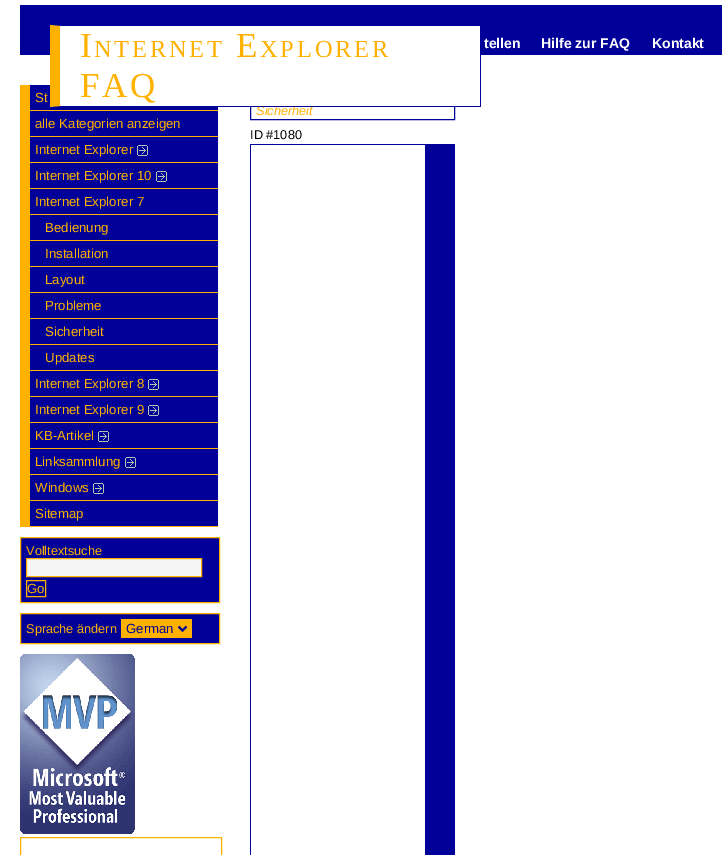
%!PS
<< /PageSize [722 855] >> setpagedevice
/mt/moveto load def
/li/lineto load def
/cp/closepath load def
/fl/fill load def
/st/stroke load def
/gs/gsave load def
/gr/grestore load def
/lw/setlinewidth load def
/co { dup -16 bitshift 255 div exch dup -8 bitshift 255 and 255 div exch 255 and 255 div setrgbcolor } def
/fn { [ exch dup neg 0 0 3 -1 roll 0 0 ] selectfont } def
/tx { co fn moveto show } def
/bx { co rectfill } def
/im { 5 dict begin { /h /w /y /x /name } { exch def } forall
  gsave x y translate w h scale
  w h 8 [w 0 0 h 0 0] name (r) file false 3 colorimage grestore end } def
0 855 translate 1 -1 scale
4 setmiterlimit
0 0 722 855 16#FFFFFF bx
20 5 702 50 16#000099 bx
480 55 1 52 16#000099 bx
30 85 188 441 16#000099 bx
20 85 10 442 16#FFB100 bx
30 110 188 1 16#FFB100 bx
30 136 188 1 16#FFB100 bx
30 162 188 1 16#FFB100 bx
(media/1.raw) 137 145 11 11 im
30 188 188 1 16#FFB100 bx
(media/1.raw) 156 171 11 11 im
30 214 188 1 16#FFB100 bx
30 240 188 1 16#FFB100 bx
30 266 188 1 16#FFB100 bx
30 292 188 1 16#FFB100 bx
30 318 188 1 16#FFB100 bx
30 344 188 1 16#FFB100 bx
30 370 188 1 16#FFB100 bx
30 396 188 1 16#FFB100 bx
(media/1.raw) 148 379 11 11 im
30 422 188 1 16#FFB100 bx
(media/1.raw) 148 405 11 11 im
30 448 188 1 16#FFB100 bx
(media/1.raw) 98 431 11 11 im
30 474 188 1 16#FFB100 bx
(media/1.raw) 125 457 11 11 im
30 500 188 1 16#FFB100 bx
(media/1.raw) 93 483 11 11 im
30 526 188 1 16#FFB100 bx
16#000099 co
20.5 537.5 mt 219.5 537.5 li 219.5 602.5 li 20.5 602.5 li cp gs fl gr
16#FFB100 co
st
16#F5F5F5 co
26.5 558.5 mt 201.5 558.5 li 201.5 576.5 li 26.5 576.5 li cp gs fl gr
16#FFB100 co
st
26.5 580.5 19 16 rectstroke
16#000099 co
20.5 613.5 mt 219.5 613.5 li 219.5 643.5 li 20.5 643.5 li cp gs fl gr
16#FFB100 co
st
121 619 71 19 16#FFB100 bx
16#000099 co
2 lw
178.5 626.5 mt 182.5 630.5 li 186.5 626.5 li st
(media/2.raw) 20 654 115 180 im
16#FFB100 co
1 lw
20.5 837.5 201 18 rectstroke
16#000099 co
250.5 85.5 204 34 rectstroke
250 144 175 1 16#000099 bx
425 144 30 711 16#000099 bx
250 144 1 711 16#000099 bx
(tellen) 484 48 /LiberationSans-Bold 14 16#FFFFFF tx
(Hilfe zur FAQ) 541 48 /LiberationSans-Bold 14 16#FFFFFF tx
(Kontakt) 652 48 /LiberationSans-Bold 14 16#FFFFFF tx
(St) 35 102 /LiberationSans-Regular 13.25 16#FFB100 tx
(alle Kategorien anzeigen) 35 128 /LiberationSans-Regular 13.25 16#FFB100 tx
(Internet Explorer) 35 154 /LiberationSans-Regular 13.25 16#FFB100 tx
(Internet Explorer 10) 35 180 /LiberationSans-Regular 13.25 16#FFB100 tx
(Internet Explorer 7) 35 206 /LiberationSans-Regular 13.25 16#FFB100 tx
(Bedienung) 45 232 /LiberationSans-Regular 13.25 16#FFB100 tx
(Installation) 45 258 /LiberationSans-Regular 13.25 16#FFB100 tx
(Layout) 45 284 /LiberationSans-Regular 13.25 16#FFB100 tx
(Probleme) 45 310 /LiberationSans-Regular 13.25 16#FFB100 tx
(Sicherheit) 45 336 /LiberationSans-Regular 13.25 16#FFB100 tx
(Updates) 45 362 /LiberationSans-Regular 13.25 16#FFB100 tx
(Internet Explorer 8) 35 388 /LiberationSans-Regular 13.25 16#FFB100 tx
(Internet Explorer 9) 35 414 /LiberationSans-Regular 13.25 16#FFB100 tx
(KB-Artikel) 35 440 /LiberationSans-Regular 13.25 16#FFB100 tx
(Linksammlung) 35 466 /LiberationSans-Regular 13.25 16#FFB100 tx
(Windows) 35 492 /LiberationSans-Regular 13.25 16#FFB100 tx
(Sitemap) 35 518 /LiberationSans-Regular 13.25 16#FFB100 tx
(Volltextsuche) 26 555 /LiberationSans-Regular 12.75 16#FFB100 tx
(Go) 27 593 /LiberationSans-Regular 13.25 16#FFB100 tx
(Sprache ändern) 26 633 /LiberationSans-Regular 12.75 16#FFB100 tx
(German) 126 633 /LiberationSans-Regular 13.25 16#000099 tx
(Sicherheit) 256 115 /LiberationSans-Italic 12.75 16#FFB100 tx
60 26 420 80 16#FFFFFF bx
/LiberationSerif-Regular 35 fn
16#FFB100 co
80 97 mt 2.75 0 (FAQ) ashow
/LiberationSerif-Regular 24.5 fn
260 57 mt 2.75 0 (XPLORER) ashow
/LiberationSerif-Regular 35 fn
236 57 mt 2.75 0 (E) ashow
/LiberationSerif-Regular 24.5 fn
94 57 mt 2.75 0 (NTERNET) ashow
/LiberationSerif-Regular 35 fn
80 57 mt 2.75 0 (I) ashow
16#000099 co
481 107 mt 50 107 li 60 106 li 480 106 li cp fl
16#FFB100 co
50 107 mt 50 25 li 60 26 li 60 106 li cp fl
(ID #1080) 250 139 /LiberationSans-Regular 12.75 16#000000 tx
showpage
